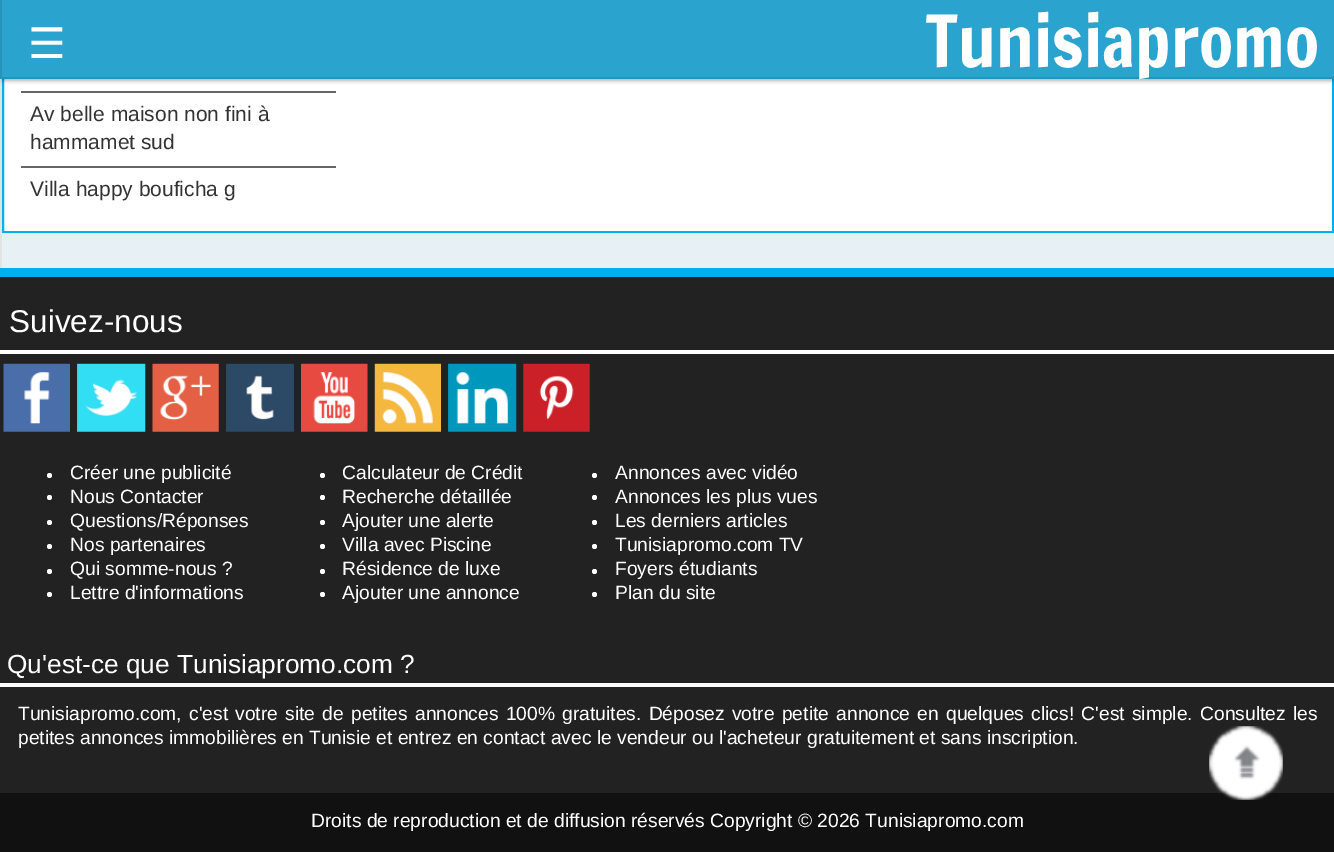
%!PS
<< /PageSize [1334 852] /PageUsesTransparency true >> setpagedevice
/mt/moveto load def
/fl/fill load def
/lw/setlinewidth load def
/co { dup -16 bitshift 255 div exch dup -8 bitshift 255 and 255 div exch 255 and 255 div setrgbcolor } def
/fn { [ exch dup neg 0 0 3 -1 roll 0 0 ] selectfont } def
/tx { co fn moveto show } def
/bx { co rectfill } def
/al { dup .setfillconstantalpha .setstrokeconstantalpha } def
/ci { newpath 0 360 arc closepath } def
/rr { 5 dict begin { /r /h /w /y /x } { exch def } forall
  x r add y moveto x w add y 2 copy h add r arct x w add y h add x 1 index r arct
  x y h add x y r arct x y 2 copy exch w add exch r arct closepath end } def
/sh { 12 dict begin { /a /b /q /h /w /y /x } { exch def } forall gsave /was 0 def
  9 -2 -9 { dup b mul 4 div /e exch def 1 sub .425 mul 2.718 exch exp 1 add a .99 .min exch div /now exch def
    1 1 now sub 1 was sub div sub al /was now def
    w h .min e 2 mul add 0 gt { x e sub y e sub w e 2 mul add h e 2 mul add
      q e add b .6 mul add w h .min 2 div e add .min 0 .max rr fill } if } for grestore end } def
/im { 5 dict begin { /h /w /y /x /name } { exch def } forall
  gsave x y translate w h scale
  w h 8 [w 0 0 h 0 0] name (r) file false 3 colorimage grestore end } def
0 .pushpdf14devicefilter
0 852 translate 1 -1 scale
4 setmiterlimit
0 0 1334 852 16#222222 bx
0 79 2 189 16#E3E3E3 bx
4 79 1328 152 16#FFFFFF bx
16#00AFF0 co
2 lw
3 -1 1330 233 rectstroke
16#000000 co
2 5 1332 76 0 2 .3 sh
0 77 1334 2 16#2693BA bx
2 0 1332 77 16#2AA4CF bx
0 0 2 77 16#2693BA bx
2 233 1332 35 16#E6F0F5 bx
21 91 315 2 16#666666 bx
21 166 315 2 16#666666 bx
0 268 1334 9 16#00AFF0 bx
0 350 1334 4 16#FFFFFF bx
(media/1.raw) 3 363 67 69 im
(media/2.raw) 77 363 69 69 im
(media/3.raw) 152 363 67 69 im
(media/4.raw) 226 363 68 69 im
(media/5.raw) 301 363 67 69 im
(media/6.raw) 374 363 67 69 im
(media/7.raw) 448 363 69 69 im
(media/8.raw) 523 363 67 69 im
49.5 475.5 2.5 ci fl
322.5 475.5 2.5 ci fl
594.5 475.5 2.5 ci fl
49.5 497.5 2.5 ci fl
322.5 497.5 2.5 ci fl
594.5 497.5 2.5 ci fl
49.5 522.5 2.5 ci fl
322.5 522.5 2.5 ci fl
594.5 522.5 2.5 ci fl
49.5 546.5 2.5 ci fl
322.5 546.5 2.5 ci fl
594.5 546.5 2.5 ci fl
49.5 571.5 2.5 ci fl
322.5 571.5 2.5 ci fl
594.5 571.5 2.5 ci fl
49.5 594.5 2.5 ci fl
322.5 594.5 2.5 ci fl
594.5 594.5 2.5 ci fl
0 683 1334 4 16#FFFFFF bx
0 793 1334 59 16#111111 bx
(media/9.raw) 1209 726 74 74 im
(☰) 28 58 /DejaVuSans-Regular 42 16#FFFFFF tx
(Tunisiapromo) 925 67 /FrancoisOne-Regular 70 16#FFFFFF tx
(Av belle maison non fini à) 30 121 /LiberationSans-Regular 21 16#333333 tx
(hammamet sud) 30 149 /LiberationSans-Regular 21 16#333333 tx
(Villa happy bouficha g) 30 196 /LiberationSans-Regular 21 16#333333 tx
(Suivez-nous) 9 332 /LiberationSans-Regular 31.5 16#FFFFFF tx
(Créer une publicité) 70 479 /LiberationSans-Regular 19.25 16#FFFFFF tx
(Calculateur de Crédit) 342 479 /LiberationSans-Regular 19.25 16#FFFFFF tx
(Annonces avec vidéo) 615 479 /LiberationSans-Regular 19.25 16#FFFFFF tx
(Nous Contacter) 70 503 /LiberationSans-Regular 19.25 16#FFFFFF tx
(Recherche détaillée) 342 503 /LiberationSans-Regular 19.25 16#FFFFFF tx
(Annonces les plus vues) 615 503 /LiberationSans-Regular 19.25 16#FFFFFF tx
(Questions/Réponses) 70 527 /LiberationSans-Regular 19.25 16#FFFFFF tx
(Ajouter une alerte) 342 527 /LiberationSans-Regular 19.25 16#FFFFFF tx
(Les derniers articles) 615 527 /LiberationSans-Regular 19.25 16#FFFFFF tx
(Nos partenaires) 70 551 /LiberationSans-Regular 19.25 16#FFFFFF tx
(Villa avec Piscine) 342 551 /LiberationSans-Regular 19.25 16#FFFFFF tx
(Tunisiapromo.com TV) 615 551 /LiberationSans-Regular 19.25 16#FFFFFF tx
(Qui somme-nous ?) 70 575 /LiberationSans-Regular 19.25 16#FFFFFF tx
(Résidence de luxe) 342 575 /LiberationSans-Regular 19.25 16#FFFFFF tx
(Foyers étudiants) 615 575 /LiberationSans-Regular 19.25 16#FFFFFF tx
(Lettre d'informations) 70 599 /LiberationSans-Regular 19.25 16#FFFFFF tx
(Ajouter une annonce) 342 599 /LiberationSans-Regular 19.25 16#FFFFFF tx
(Plan du site) 615 599 /LiberationSans-Regular 19.25 16#FFFFFF tx
(Qu'est-ce que Tunisiapromo.com ?) 7 673 /LiberationSans-Regular 26.25 16#FFFFFF tx
/LiberationSans-Regular 19.25 fn
18 720 mt 1.9 0 32 (Tunisiapromo.com, c'est votre site de petites annonces 100% gratuites. Déposez votre petite annonce en quelques clics! C'est simple. Consultez les) widthshow
(petites annonces immobilières en Tunisie et entrez en contact avec le vendeur ou l'acheteur gratuitement et sans inscription.) 18 744 /LiberationSans-Regular 19.25 16#FFFFFF tx
(Droits de reproduction et de diffusion réservés Copyright © 2026 Tunisiapromo.com) 311 827 /LiberationSans-Regular 19.25 16#FFFFFF tx
.poppdf14devicefilter showpage
